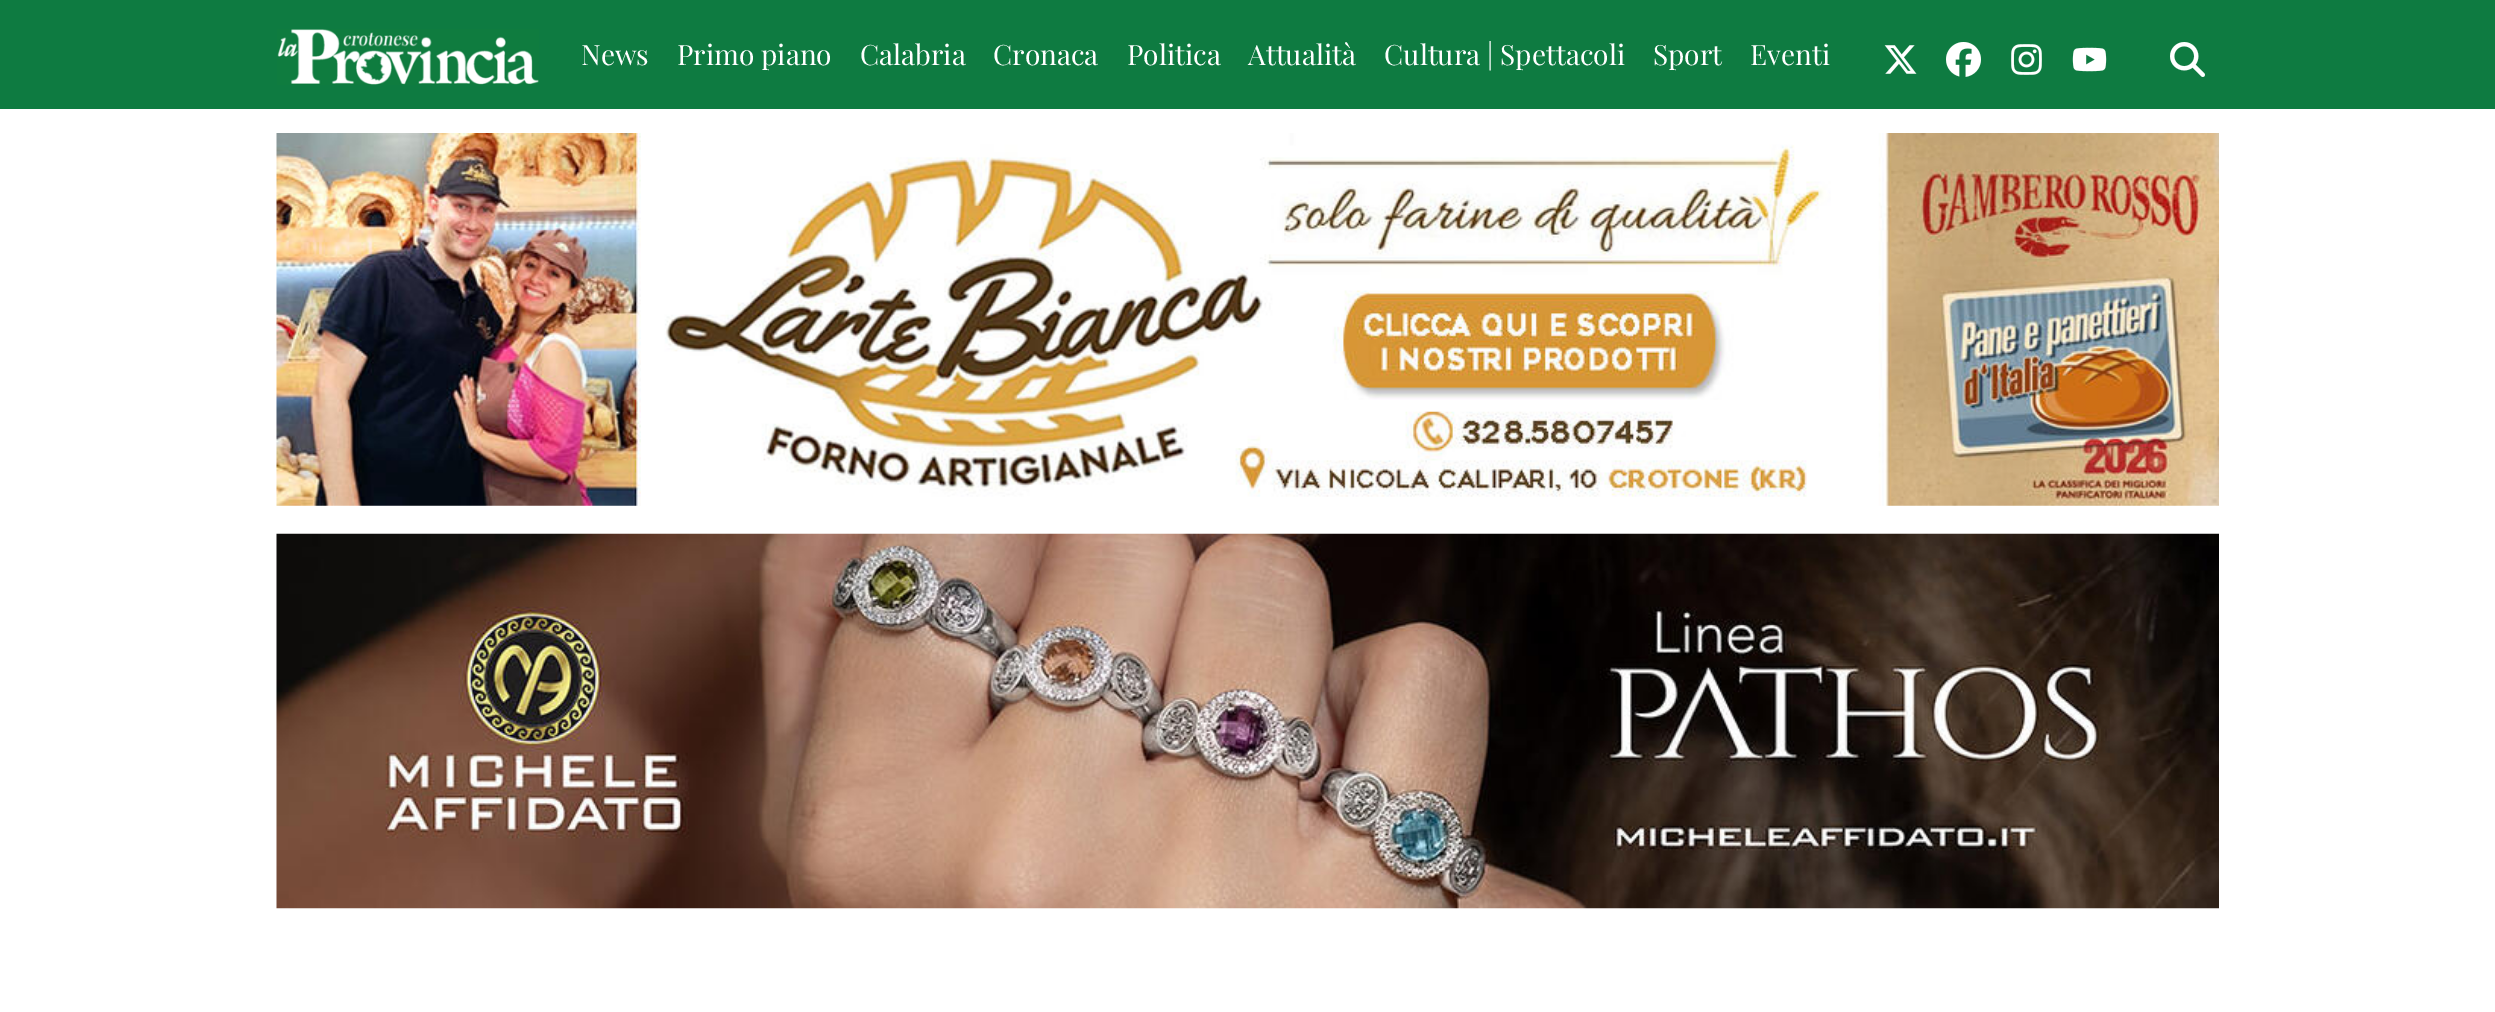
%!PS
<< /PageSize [2495 1012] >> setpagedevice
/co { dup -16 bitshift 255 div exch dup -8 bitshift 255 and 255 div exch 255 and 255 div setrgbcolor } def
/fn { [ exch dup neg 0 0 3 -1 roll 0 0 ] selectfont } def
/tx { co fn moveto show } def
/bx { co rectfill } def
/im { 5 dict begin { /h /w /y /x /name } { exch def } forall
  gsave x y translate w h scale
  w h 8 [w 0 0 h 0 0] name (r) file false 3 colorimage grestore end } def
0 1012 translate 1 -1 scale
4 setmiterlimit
0 0 2495 1012 16#FFFFFF bx
0 0 2495 109 16#0E7B41 bx
(media/1.raw) 277 29 262 56 im
(media/2.raw) 1884 45 33 29 im
(media/3.raw) 1946 42 35 35 im
(media/4.raw) 2011 44 31 31 im
(media/5.raw) 2072 47 35 25 im
(media/6.raw) 2170 42 35 35 im
(media/7.raw) 276 133 1943 373 im
(media/8.raw) 276 533 1943 376 im
(News) 581 65 /PlayfairDisplay-Regular 28 16#FFFFFF tx
(Primo piano) 677 65 /PlayfairDisplay-Regular 28 16#FFFFFF tx
(Calabria) 860 65 /PlayfairDisplay-Regular 28 16#FFFFFF tx
(Cronaca) 993 65 /PlayfairDisplay-Regular 28 16#FFFFFF tx
(Politica) 1127 65 /PlayfairDisplay-Regular 28 16#FFFFFF tx
(Attualità) 1248 65 /PlayfairDisplay-Regular 28 16#FFFFFF tx
(Cultura | Spettacoli) 1384 65 /PlayfairDisplay-Regular 28 16#FFFFFF tx
(Sport) 1653 65 /PlayfairDisplay-Regular 28 16#FFFFFF tx
(Eventi) 1750 65 /PlayfairDisplay-Regular 28 16#FFFFFF tx
showpage
